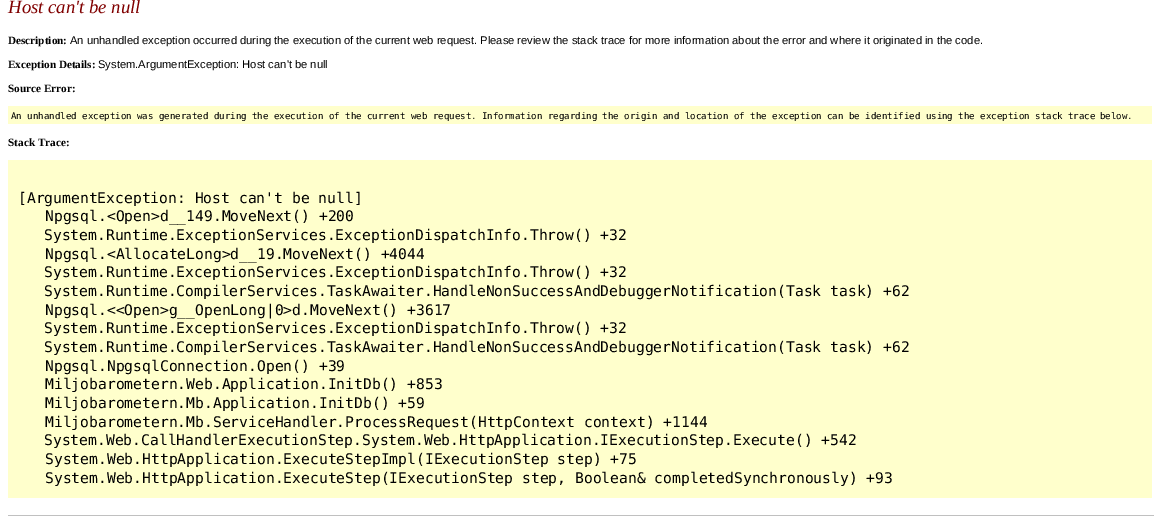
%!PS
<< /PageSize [1160 520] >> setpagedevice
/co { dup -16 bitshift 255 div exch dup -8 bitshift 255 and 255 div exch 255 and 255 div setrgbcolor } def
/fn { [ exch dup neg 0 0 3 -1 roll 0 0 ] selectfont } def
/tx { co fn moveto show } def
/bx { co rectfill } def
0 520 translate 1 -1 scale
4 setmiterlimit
0 0 1160 520 16#FFFFFF bx
8 106 1144 18 16#FFFFCC bx
8 160 1144 338 16#FFFFCC bx
8 515 1146 1 16#C0C0C0 bx
(Host can't be null) 8 13 /LiberationSerif-Italic 18.75 16#800000 tx
(Description:) 8 44 /LiberationSerif-Bold 11.2 16#000000 tx
(An unhandled exception occurred during the execution of the current web request. Please review the stack trace for more information about the error and where it originated in the code.) 70 44 /LiberationSans-Regular 11.2 16#000000 tx
(Exception Details:) 8 68 /LiberationSerif-Bold 11.2 16#000000 tx
(System.ArgumentException: Host can't be null) 98 68 /LiberationSans-Regular 11.2 16#000000 tx
(Source Error:) 8 92 /LiberationSerif-Bold 11.2 16#000000 tx
(An unhandled exception was generated during the execution of the current web request. Information regarding the origin and location of the exception can be identified using the exception stack trace) 11 119 /DejaVuSansMono-Regular 9.1 16#000000 tx
(below.) 1100 119 /DejaVuSansMono-Regular 9.1 16#000000 tx
(Stack Trace:) 8 146 /LiberationSerif-Bold 11.2 16#000000 tx
([ArgumentException: Host can't be null]) 18 203 /DejaVuSansMono-Regular 14.67 16#000000 tx
(Npgsql.<Open>d__149.MoveNext\(\) +200) 45 221 /DejaVuSansMono-Regular 14.67 16#000000 tx
(System.Runtime.ExceptionServices.ExceptionDispatchInfo.Throw\(\) +32) 44 240 /DejaVuSansMono-Regular 14.67 16#000000 tx
(Npgsql.<AllocateLong>d__19.MoveNext\(\) +4044) 45 259 /DejaVuSansMono-Regular 14.67 16#000000 tx
(System.Runtime.ExceptionServices.ExceptionDispatchInfo.Throw\(\) +32) 44 277 /DejaVuSansMono-Regular 14.67 16#000000 tx
(System.Runtime.CompilerServices.TaskAwaiter.HandleNonSuccessAndDebuggerNotification\(Task task\) +62) 44 296 /DejaVuSansMono-Regular 14.67 16#000000 tx
(Npgsql.<<Open>g__OpenLong|0>d.MoveNext\(\) +3617) 45 315 /DejaVuSansMono-Regular 14.67 16#000000 tx
(System.Runtime.ExceptionServices.ExceptionDispatchInfo.Throw\(\) +32) 44 333 /DejaVuSansMono-Regular 14.67 16#000000 tx
(System.Runtime.CompilerServices.TaskAwaiter.HandleNonSuccessAndDebuggerNotification\(Task task\) +62) 44 352 /DejaVuSansMono-Regular 14.67 16#000000 tx
(Npgsql.NpgsqlConnection.Open\(\) +39) 45 371 /DejaVuSansMono-Regular 14.67 16#000000 tx
(Miljobarometern.Web.Application.InitDb\(\) +853) 45 389 /DejaVuSansMono-Regular 14.67 16#000000 tx
(Miljobarometern.Mb.Application.InitDb\(\) +59) 45 408 /DejaVuSansMono-Regular 14.67 16#000000 tx
(Miljobarometern.Mb.ServiceHandler.ProcessRequest\(HttpContext context\) +1144) 45 427 /DejaVuSansMono-Regular 14.67 16#000000 tx
(System.Web.CallHandlerExecutionStep.System.Web.HttpApplication.IExecutionStep.Execute\(\) +542) 44 445 /DejaVuSansMono-Regular 14.67 16#000000 tx
(System.Web.HttpApplication.ExecuteStepImpl\(IExecutionStep step\) +75) 45 464 /DejaVuSansMono-Regular 14.67 16#000000 tx
(System.Web.HttpApplication.ExecuteStep\(IExecutionStep step, Boolean& completedSynchronously\) +93) 45 483 /DejaVuSansMono-Regular 14.67 16#000000 tx
showpage
